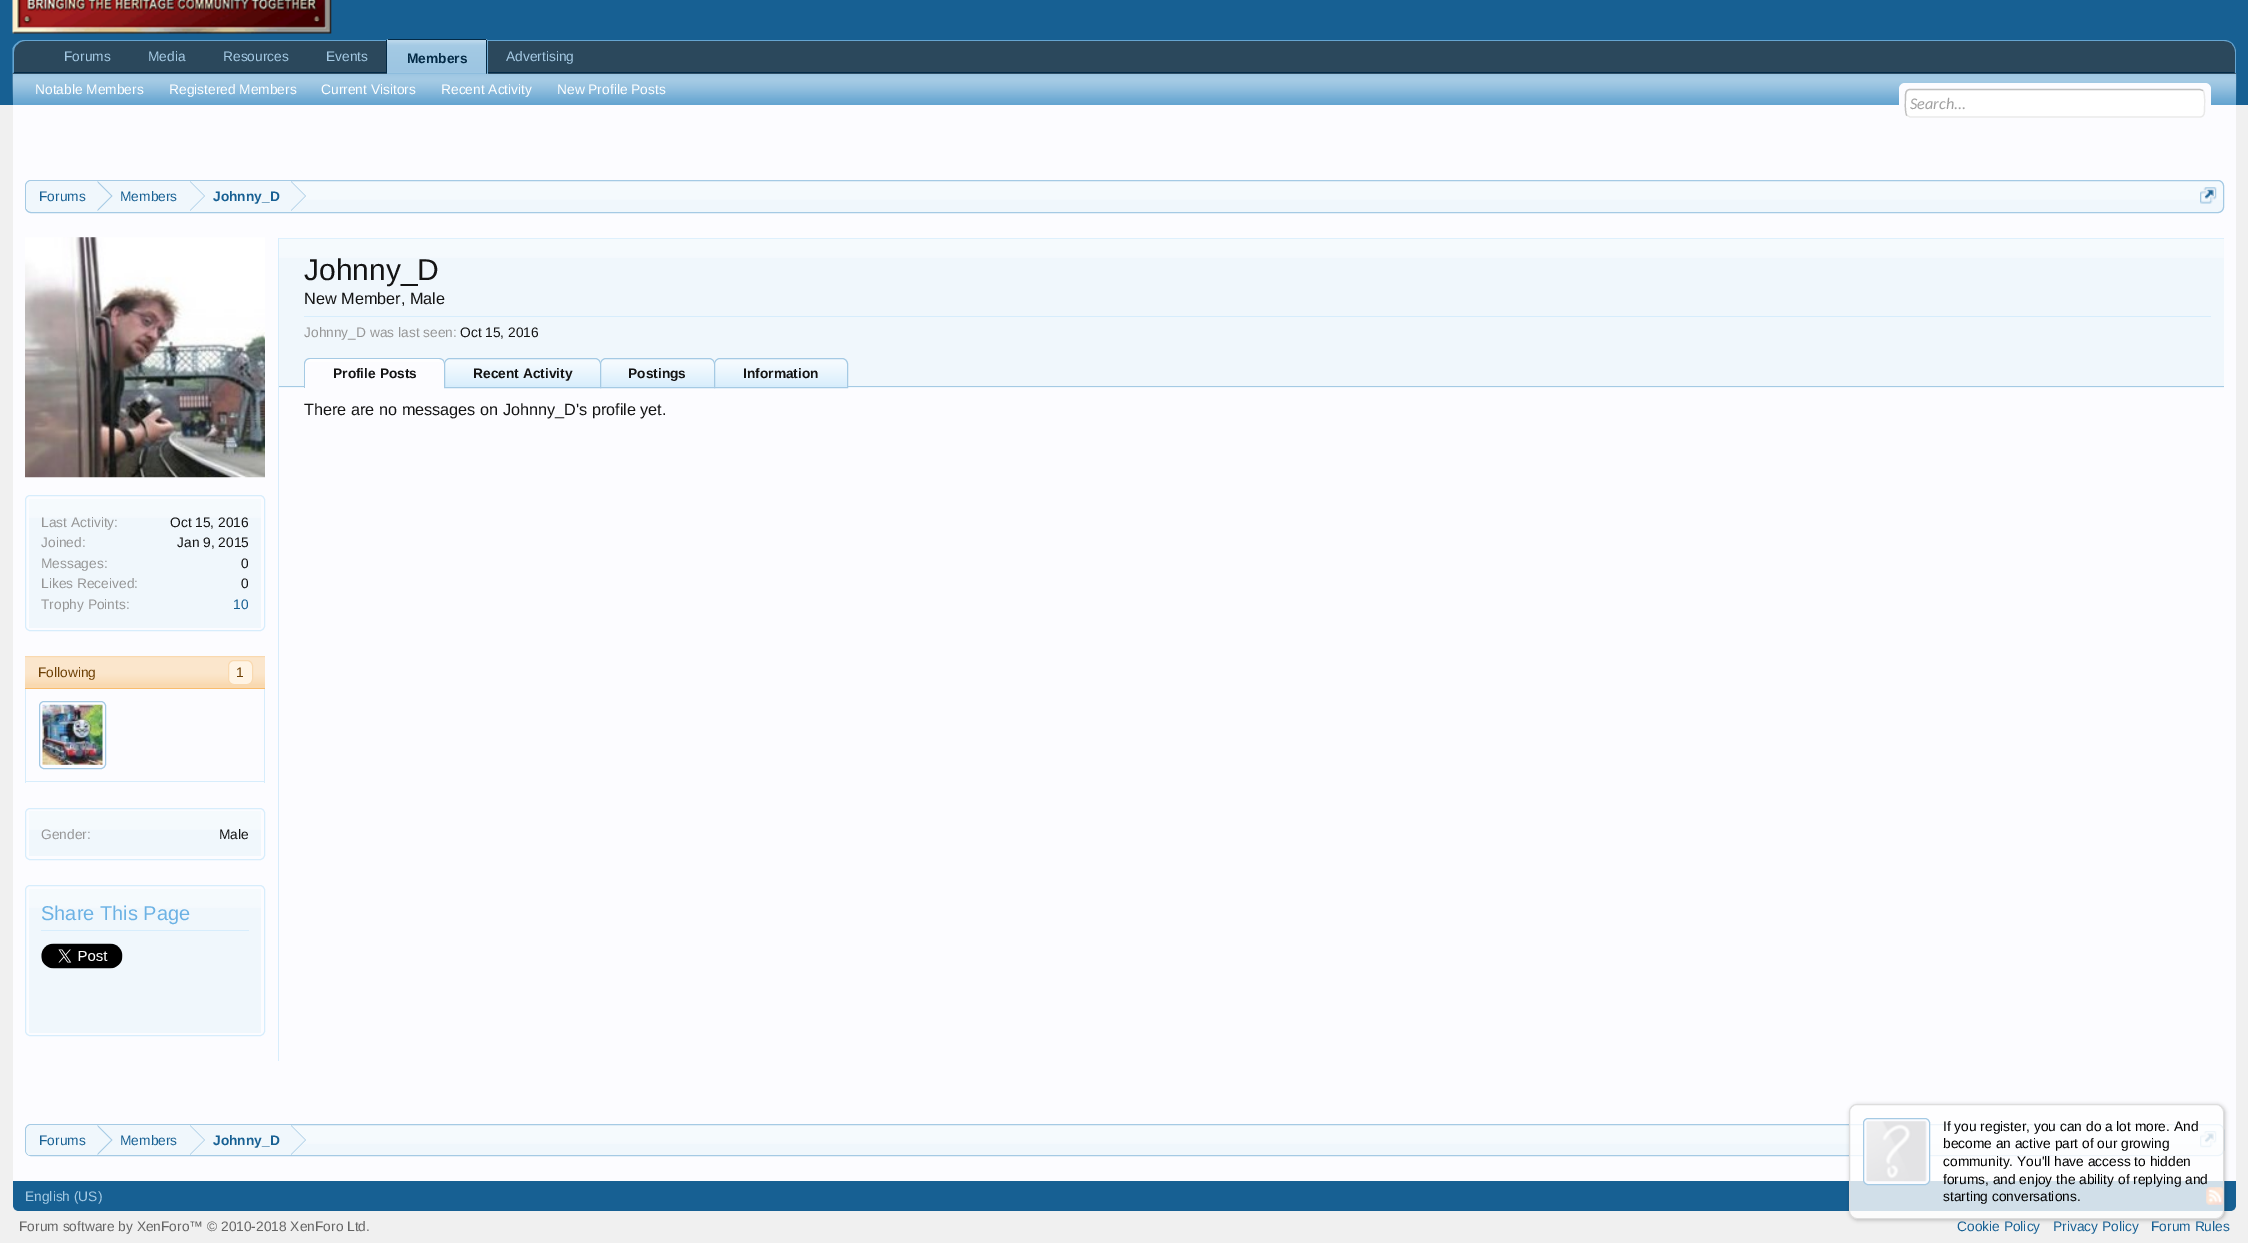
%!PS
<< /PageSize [2248 1243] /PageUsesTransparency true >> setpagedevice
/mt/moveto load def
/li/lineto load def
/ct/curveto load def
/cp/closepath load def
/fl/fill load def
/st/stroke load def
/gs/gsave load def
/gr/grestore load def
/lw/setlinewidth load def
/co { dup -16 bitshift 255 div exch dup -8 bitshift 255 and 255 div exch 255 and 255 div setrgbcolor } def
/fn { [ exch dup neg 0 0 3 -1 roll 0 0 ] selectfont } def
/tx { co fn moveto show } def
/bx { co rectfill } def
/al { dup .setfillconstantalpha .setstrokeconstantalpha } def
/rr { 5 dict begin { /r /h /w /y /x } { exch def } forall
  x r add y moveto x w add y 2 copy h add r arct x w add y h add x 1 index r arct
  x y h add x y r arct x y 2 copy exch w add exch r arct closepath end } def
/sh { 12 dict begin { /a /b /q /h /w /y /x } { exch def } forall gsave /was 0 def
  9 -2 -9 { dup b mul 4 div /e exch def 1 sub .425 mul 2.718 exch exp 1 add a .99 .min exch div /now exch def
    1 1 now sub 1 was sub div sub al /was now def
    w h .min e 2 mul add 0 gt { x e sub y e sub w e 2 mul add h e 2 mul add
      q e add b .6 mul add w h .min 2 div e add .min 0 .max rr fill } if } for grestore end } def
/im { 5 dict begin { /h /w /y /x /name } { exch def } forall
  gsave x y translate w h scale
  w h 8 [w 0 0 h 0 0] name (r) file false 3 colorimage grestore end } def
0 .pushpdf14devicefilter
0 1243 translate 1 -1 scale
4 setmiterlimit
0 0 2248 1243 16#F0F0F0 bx
0 0 2248 105 16#176093 bx
(media/1.raw) 12 0 320 34 im
16#2B485C co
26 40 mt 2223 40 li 2230 40 2236 46 2236 53 ct 2236 74 li 13 74 li 13 53 li 13 46 19 40 26 40 ct cp fl
16#65A5D1 co
25 40 mt 22 40 18 41 16 44 ct 17 45 li 19 42 22 41 25 41 ct 2224 41 li 2227 41 2230 42 2232 44 ct 2233 44 li 2230 41 2227 40 2224 40 ct cp fl
2232.5 43.5 mt 2234.5 46 2236 49 2236 52 ct 2236 73.5 li 2234.5 72 li 2235 72 li 2235 52 li 2235 49 2234 46.5 2232 44.5 ct cp fl
16#032A46 co
2236 74 mt 12 74 li 14 72 li 2234 72 li cp fl
16#65A5D1 co
12.5 74 mt 12.5 49 li 13 47 14.5 45 16 43.5 ct 17 44.5 li 15 46.5 14 49 14 52 ct 14 72 li cp fl
388.5 39 mt 485.5 39 li 487 39 488 40 488 41.5 ct 488 74 li 386 74 li 386 41.5 li 386 40 387 39 388.5 39 ct cp fl
(media/2.raw) 386 39 102 35 im
388 39 98 1 16#032A46 bx
486 40 1 34 16#032A46 bx
386 40 1 34 16#032A46 bx
13 74 2223 31 16#65A5D1 bx
(media/3.raw) 12 73 2225 30 im
13 105 2223 1076 16#FCFCFF bx
1899 83 312 35 6 rr fl
16#FFFFFF co
1905 89 300 29 5 rr fl
16#E9E9E9 co
1.2 lw
2203 90.5 mt 2205.5 93.5 2204.5 105.5 2204.5 109.5 ct 2204.5 112.5 2204.5 117 2200 117 ct 1910 117 li 1907 115.5 li st
16#C0C0C0 co
1907 115.5 mt 1904.5 113 1905.5 100.5 1905.5 97 ct 1905.5 93.5 1905.5 89.5 1910 89.5 ct 2200 89.5 li 2203 90.5 li st
16#F0F7FC co
25 180 2199 33 6 rr fl
(media/4.raw) 25 181 2198 19 im
16#A5CAE4 co
1 lw
25.5 180.5 2198 32 5.5 rr st
gs
26 181 2197 30 5 rr clip newpath
16#F0F7FC co
32 181 mt 98 181 li 98 213 li 32 213 li 28.5 213 26 210.5 26 207 ct 26 187 li 26 183.5 28.5 181 32 181 ct cp fl
gr
98 181 193 19 16#F0F7FC bx
16#A5CAE4 co
97.5 211 mt 97.5 181 li 112.5 196 li cp fl
16#F0F7FC co
96 211 mt 96 181 li 111 196 li cp fl
16#A5CAE4 co
190 211 mt 190 181 li 205 196 li cp fl
16#F0F7FC co
189 211 mt 189 181 li 204 196 li cp fl
16#A5CAE4 co
291 211 mt 291 181 li 306 196 li cp fl
16#F0F7FC co
290 211 mt 290 181 li 305 196 li cp fl
(media/5.raw) 2200 187 17 17 im
279 238 1945 1 16#D7EDFC bx
279 239 1945 149 16#F0F7FC bx
(media/6.raw) 279 238 1945 20 im
304 316 1907 1 16#D7EDFC bx
279 386 1945 1 16#A5CAE4 bx
16#FCFCFF co
310 358 mt 439 358 li 442.5 358 445 360.5 445 364 ct 445 388 li 304 388 li 304 364 li 304 360.5 306.5 358 310 358 ct cp fl
(media/7.raw) 304 359 141 3 im
16#A5CAE4 co
310 358 mt 439 358 li 442 358 445 360 445 364 ct 445 388 li 304 388 li 304 364 li 304 360 307 358 310 358 ct cp 310 359 mt 439 359 li 442 359 444 361 444 364 ct 444 388 li 305 388 li 305 364 li 305 361 307 359 310 359 ct cp eofill
16#D7EDFC co
450 358 mt 595 358 li 598.5 358 601 360.5 601 364 ct 601 388 li 444 388 li 444 364 li 444 360.5 446.5 358 450 358 ct cp fl
(media/8.raw) 444 358 157 27 im
16#A5CAE4 co
450 358.5 mt 595 358.5 li 598 358.5 600.5 361 600.5 364 ct 600.5 387.5 li 444.5 387.5 li 444.5 364 li 444.5 361 447 358.5 450 358.5 ct cp st
16#D7EDFC co
606 358 mt 709 358 li 712.5 358 715 360.5 715 364 ct 715 388 li 600 388 li 600 364 li 600 360.5 602.5 358 606 358 ct cp fl
(media/9.raw) 600 358 115 27 im
16#A5CAE4 co
606 358.5 mt 709 358.5 li 712 358.5 714.5 361 714.5 364 ct 714.5 387.5 li 600.5 387.5 li 600.5 364 li 600.5 361 603 358.5 606 358.5 ct cp st
16#D7EDFC co
720 358 mt 842 358 li 845.5 358 848 360.5 848 364 ct 848 388 li 714 388 li 714 364 li 714 360.5 716.5 358 720 358 ct cp fl
(media/10.raw) 714 358 134 27 im
16#A5CAE4 co
720 358.5 mt 842 358.5 li 845 358.5 847.5 361 847.5 364 ct 847.5 387.5 li 714.5 387.5 li 714.5 364 li 714.5 361 717 358.5 720 358.5 ct cp st
278 238 1 823 16#D7EDFC bx
(media/11.raw) 25 237 240 241 im
25.5 495.5 239 135 4.5 rr st
29 499 232 129 16#F0F7FC bx
(media/12.raw) 29 499 232 19 im
25 656 240 32 16#F9D9B0 bx
(media/13.raw) 25 657 240 27 im
25 688 240 1 16#F9BC6D bx
16#FFF4E5 co
228.5 660.5 24 24 5.5 rr gs fl gr
16#F9D9B0 co
st
264 689 1 94 16#D7EDFC bx
25 781 240 1 16#D7EDFC bx
25 689 1 94 16#D7EDFC bx
(media/14.raw) 42 704 61 61 im
16#A5CAE4 co
39.5 701.5 66 67 4.5 rr st
16#D7EDFC co
25.5 808.5 239 51 4.5 rr st
29 811 232 45 16#F0F7FC bx
(media/15.raw) 29 811 232 19 im
16#D7EDFC co
25.5 885.5 239 150 4.5 rr st
29 889 232 144 16#F0F7FC bx
(media/12.raw) 29 889 232 19 im
41 930 208 1 16#D7EDFC bx
(media/16.raw) 41 943 82 26 im
16#F0F7FC co
25 1124 2199 32 6 rr fl
(media/17.raw) 25 1125 2198 19 im
16#A5CAE4 co
25.5 1124.5 2198 31 5.5 rr st
gs
26 1125 2197 30 5 rr clip newpath
16#F0F7FC co
32 1125 mt 98 1125 li 98 1156 li 32 1156 li 28.5 1156 26 1153.5 26 1150 ct 26 1131 li 26 1127.5 28.5 1125 32 1125 ct cp fl
gr
98 1125 193 19 16#F0F7FC bx
16#A5CAE4 co
97.5 1155 mt 97.5 1125 li 112.5 1140 li cp fl
16#F0F7FC co
96 1155 mt 96 1125 li 111 1140 li cp fl
16#A5CAE4 co
190 1155 mt 190 1125 li 205 1140 li cp fl
16#F0F7FC co
189 1155 mt 189 1125 li 204 1140 li cp fl
16#A5CAE4 co
291 1155 mt 291 1125 li 306 1140 li cp fl
16#F0F7FC co
290 1155 mt 290 1125 li 305 1140 li cp fl
(media/18.raw) 2200 1131 17 17 im
16#176093 co
13 1181 mt 2236 1181 li 2236 1205 li 2236 1208.5 2233.5 1211 2230 1211 ct 19 1211 li 15.5 1211 13 1208.5 13 1205 ct cp fl
(media/20.raw) 2206 1187 17 18 im
gs
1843 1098 mt 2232 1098 li 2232 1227 li 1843 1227 li cp 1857 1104 mt 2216 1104 li 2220.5 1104 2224 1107.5 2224 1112 ct 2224 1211 li 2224 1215.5 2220.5 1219 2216 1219 ct 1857 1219 li 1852.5 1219 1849 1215.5 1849 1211 ct 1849 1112 li 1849 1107.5 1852.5 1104 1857 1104 ct cp eoclip newpath
16#000000 co
1850 1105 375 115 8 2 .25 sh
gr
0.8 al
16#FFFFFF co
1849.5 1104.5 374 114 7.5 rr fl
1 al
16#DDDDDD co
1849.5 1104.5 374 114 7.5 rr st
16#FCFCFF co
1863.5 1118.5 66 66 4.5 rr gs fl gr
16#A5CAE4 co
st
(media/19.raw) 1866 1121 61 61 im
(Forums) 64 61 /LiberationSans-Regular 13.75 16#A5CAE4 tx
(Media) 148 61 /LiberationSans-Regular 13.75 16#A5CAE4 tx
(Resources) 223 61 /LiberationSans-Regular 13.75 16#A5CAE4 tx
(Events) 326 61 /LiberationSans-Regular 13.75 16#A5CAE4 tx
(Advertising) 506 61 /LiberationSans-Regular 13.75 16#A5CAE4 tx
(Members) 407 63 /LiberationSans-Bold 13.75 16#032A46 tx
(Notable Members) 35 94 /LiberationSans-Regular 13.75 16#FFFFFF tx
(Registered Members) 169 94 /LiberationSans-Regular 13.75 16#FFFFFF tx
(Current Visitors) 321 94 /LiberationSans-Regular 13.75 16#FFFFFF tx
(Recent Activity) 441 94 /LiberationSans-Regular 13.75 16#FFFFFF tx
(New Profile Posts) 557 94 /LiberationSans-Regular 13.75 16#FFFFFF tx
(Search...) 1910 109 /Carlito-Italic 16.25 16#A0A0A0 tx
(Forums) 39 201 /LiberationSans-Regular 13.75 16#176093 tx
(Members) 120 201 /LiberationSans-Regular 13.75 16#176093 tx
(Johnny_D) 213 201 /LiberationSans-Bold 13.75 16#176093 tx
(Johnny_D) 304 280 /LiberationSans-Regular 30 16#141414 tx
(New Member, Male) 304 304 /LiberationSans-Regular 16.25 16#141414 tx
(Johnny_D was last seen:) 304 337 /LiberationSans-Regular 13.75 16#969696 tx
(Oct 15, 2016) 460 337 /LiberationSans-Regular 13.75 16#141414 tx
(Profile Posts) 333 378 /LiberationSans-Bold 13.75 16#141414 tx
(Recent Activity) 473 378 /LiberationSans-Bold 13.75 16#141414 tx
(Postings) 628 378 /LiberationSans-Bold 13.75 16#141414 tx
(Information) 743 378 /LiberationSans-Bold 13.75 16#141414 tx
(There are no messages on Johnny_D's profile yet.) 304 415 /LiberationSans-Regular 16.25 16#141414 tx
(Last Activity:) 41 527 /LiberationSans-Regular 13.75 16#969696 tx
(Oct 15, 2016) 170 527 /LiberationSans-Regular 13.75 16#141414 tx
(Joined:) 41 547 /LiberationSans-Regular 13.75 16#969696 tx
(Jan 9, 2015) 177 547 /LiberationSans-Regular 13.75 16#141414 tx
(Messages:) 41 568 /LiberationSans-Regular 13.75 16#969696 tx
(0) 241 568 /LiberationSans-Regular 13.75 16#141414 tx
(Likes Received:) 41 588 /LiberationSans-Regular 13.75 16#969696 tx
(0) 241 588 /LiberationSans-Regular 13.75 16#141414 tx
(Trophy Points:) 41 609 /LiberationSans-Regular 13.75 16#969696 tx
(10) 233 609 /LiberationSans-Regular 13.75 16#176093 tx
(Following) 38 677 /LiberationSans-Regular 13.75 16#6D3F03 tx
(1) 236 677 /LiberationSans-Regular 13.75 16#6D3F03 tx
(Gender:) 41 839 /LiberationSans-Regular 13.75 16#969696 tx
(Male) 219 839 /LiberationSans-Regular 13.75 16#141414 tx
(Share This Page) 41 920 /LiberationSans-Regular 20 16#6CB2E4 tx
(Forums) 39 1145 /LiberationSans-Regular 13.75 16#176093 tx
(Members) 120 1145 /LiberationSans-Regular 13.75 16#176093 tx
(Johnny_D) 213 1145 /LiberationSans-Bold 13.75 16#176093 tx
(If you register, you can do a lot more. And) 1943 1131 /LiberationSans-Regular 13.75 16#000000 tx
(become an active part of our growing) 1943 1148 /LiberationSans-Regular 13.75 16#000000 tx
(community. You'll have access to hidden) 1943 1166 /LiberationSans-Regular 13.75 16#000000 tx
(forums, and enjoy the ability of replying and) 1943 1184 /LiberationSans-Regular 13.75 16#000000 tx
(starting conversations.) 1943 1201 /LiberationSans-Regular 13.75 16#000000 tx
(English \(US\)) 25 1201 /LiberationSans-Regular 13.75 16#A5CAE4 tx
(Forum software by XenForo™ © 2010-2018 XenForo Ltd.) 19 1231 /LiberationSans-Regular 13.75 16#646464 tx
(Cookie Policy) 1957 1231 /LiberationSans-Regular 13.75 16#176093 tx
(Privacy Policy) 2053 1231 /LiberationSans-Regular 13.75 16#176093 tx
(Forum Rules) 2151 1231 /LiberationSans-Regular 13.75 16#176093 tx
.poppdf14devicefilter showpage
